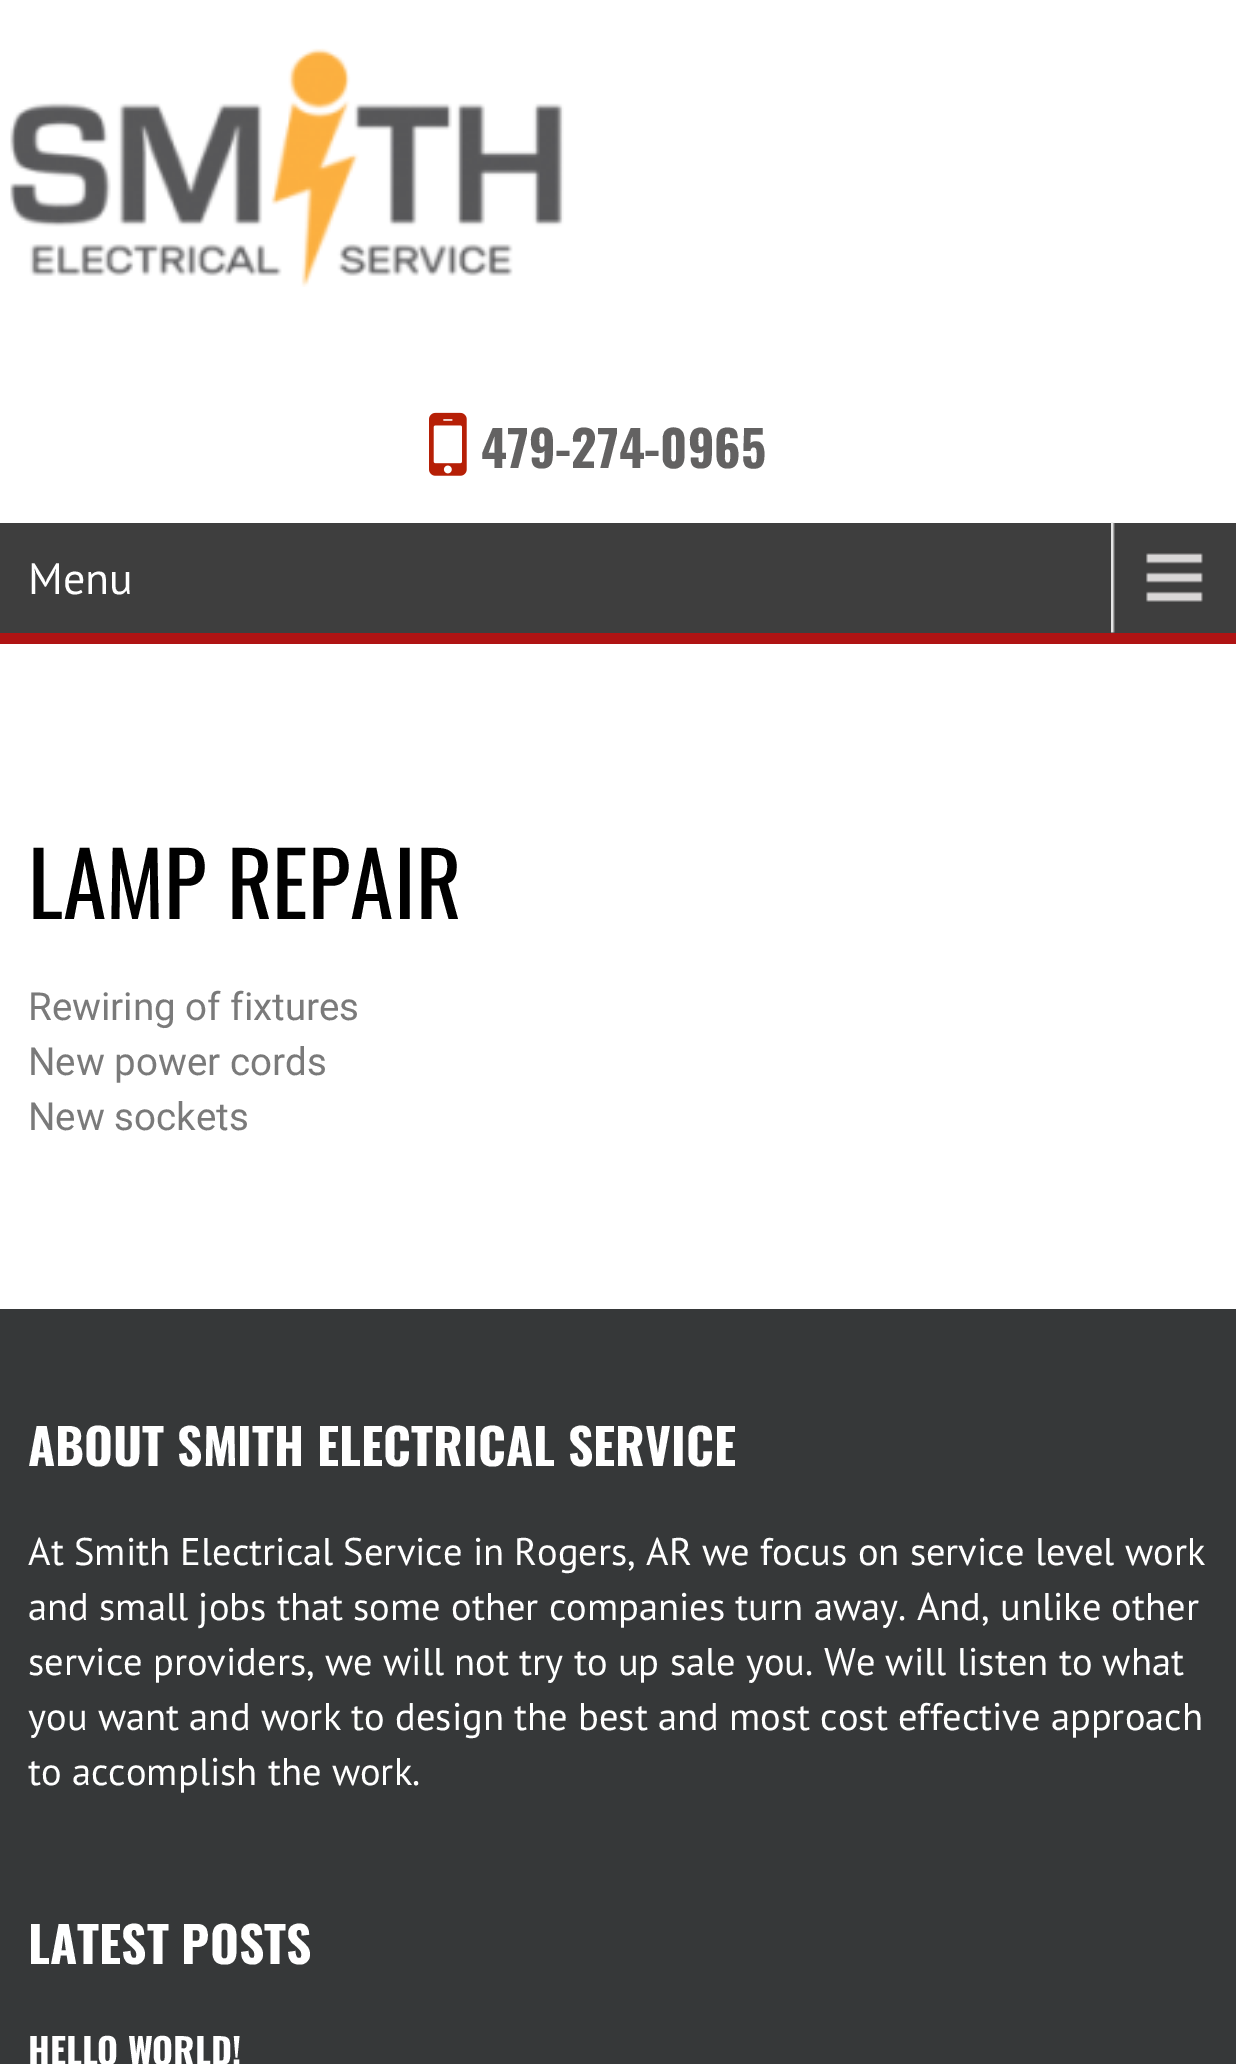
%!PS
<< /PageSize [1236 2064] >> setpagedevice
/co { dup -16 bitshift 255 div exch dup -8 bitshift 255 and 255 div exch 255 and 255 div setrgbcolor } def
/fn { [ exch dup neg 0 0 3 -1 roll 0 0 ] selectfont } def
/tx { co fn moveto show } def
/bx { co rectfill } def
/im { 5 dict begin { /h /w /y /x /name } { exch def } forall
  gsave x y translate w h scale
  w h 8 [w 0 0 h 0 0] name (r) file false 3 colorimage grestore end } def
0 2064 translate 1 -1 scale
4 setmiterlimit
0 0 1236 2064 16#FFFFFF bx
(media/1.raw) 10 48 554 239 im
(media/2.raw) 429 412 38 64 im
0 523 1236 110 16#3E3E3E bx
(media/3.raw) 1111 522 92 111 im
0 633 1236 11 16#AF1313 bx
0 1309 1236 755 16#363839 bx
(479-274-0965) 481 468 /Oswald-Bold 49.5 16#636262 tx
(Menu) 28 594 /PTSans-Regular 44 16#FFFFFF tx
(LAMP REPAIR) 28 919 /Oswald-Regular 88 16#000000 tx
(Rewiring of fixtures) 28 1020 /Roboto-Regular 38.5 16#7A7A7A tx
(New power cords) 28 1075 /Roboto-Regular 38.5 16#7A7A7A tx
(New sockets) 28 1130 /Roboto-Regular 38.5 16#7A7A7A tx
(ABOUT SMITH ELECTRICAL SERVICE) 28 1466 /Oswald-Bold 49.5 16#FFFFFF tx
(At Smith Electrical Service in Rogers, AR we focus on service level work) 28 1565 /PTSans-Regular 38.5 16#FFFFFF tx
(and small jobs that some other companies turn away. And, unlike other) 28 1620 /PTSans-Regular 38.5 16#FFFFFF tx
(service providers, we will not try to up sale you. We will listen to what) 28 1675 /PTSans-Regular 38.5 16#FFFFFF tx
(you want and work to design the best and most cost effective approach) 28 1730 /PTSans-Regular 38.5 16#FFFFFF tx
(to accomplish the work.) 28 1785 /PTSans-Regular 38.5 16#FFFFFF tx
(LATEST POSTS) 28 1964 /Oswald-Bold 49.5 16#FFFFFF tx
(HELLO WORLD!) 28 2065 /Oswald-Bold 35.75 16#FFFFFF tx
showpage
